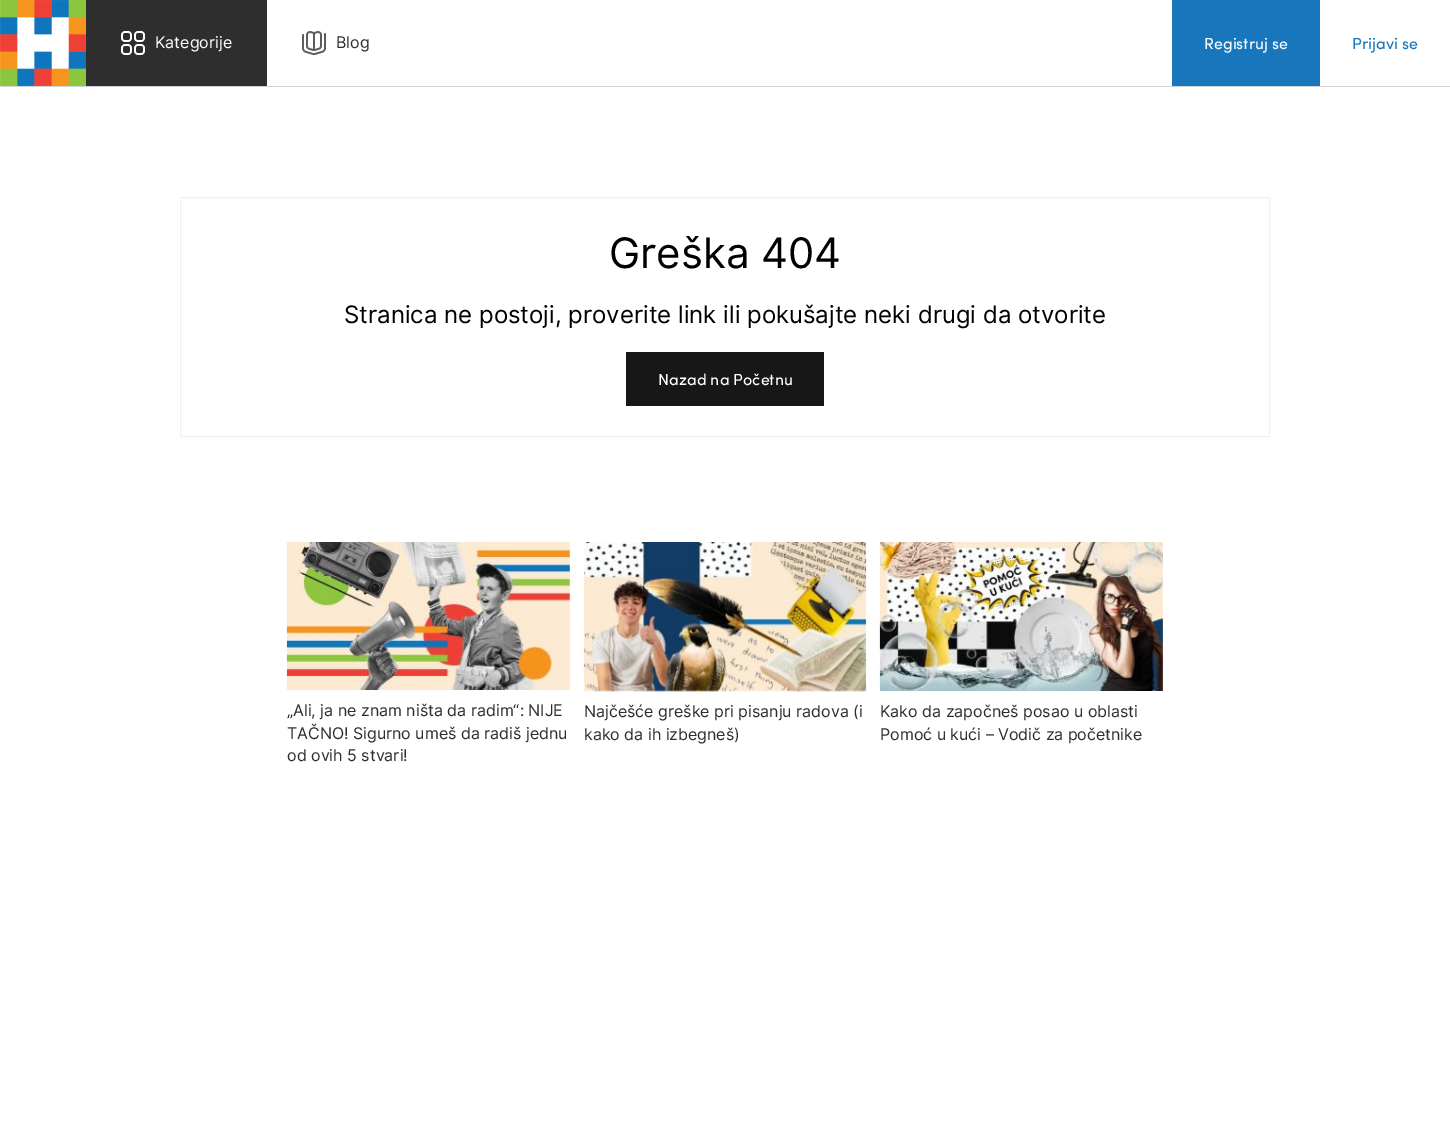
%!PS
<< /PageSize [1450 1125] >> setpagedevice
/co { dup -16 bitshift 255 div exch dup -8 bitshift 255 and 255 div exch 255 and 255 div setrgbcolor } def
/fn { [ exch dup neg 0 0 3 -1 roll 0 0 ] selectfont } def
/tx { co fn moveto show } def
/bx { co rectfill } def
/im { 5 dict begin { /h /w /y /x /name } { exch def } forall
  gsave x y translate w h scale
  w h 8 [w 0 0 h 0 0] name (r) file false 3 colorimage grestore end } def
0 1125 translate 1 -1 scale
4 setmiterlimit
0 0 1450 1125 16#FFFFFF bx
0 86 1450 1 16#CFD3D7 bx
(media/1.raw) 0 0 86 86 im
86 0 181 86 16#2E2E2E bx
(media/2.raw) 121 31 24 24 im
(media/3.raw) 302 31 24 24 im
1172 0 148 86 16#1876BC bx
16#F1F1F1 co
180.5 197.5 1089 239 rectstroke
626 352 198 54 16#171717 bx
(media/4.raw) 286 542 284 148 im
(media/5.raw) 583 542 284 150 im
(media/6.raw) 879 542 284 149 im
(Kategorije) 155 48 /Inter-Regular 16 16#FFFFFF tx
(Blog) 336 48 /Inter-Regular 16 16#2E2E2E tx
(Registruj se) 1204 49 /Sofia-Regular 16 16#FFFFFF tx
(Prijavi se) 1352 49 /Sofia-Regular 16 16#1876BC tx
(Greška 404) 609 268 /Inter-Regular 42 16#000000 tx
(Stranica ne postoji, proverite link ili pokušajte neki drugi da otvorite) 344 323 /Inter-Regular 24 16#000000 tx
(Nazad na Početnu) 658 385 /Sofia-Regular 16 16#FFFFFF tx
(„Ali, ja ne znam ništa da radim“: NIJE) 287 716 /Inter-Regular 16 16#2E2E2E tx
(TAČNO! Sigurno umeš da radiš jednu) 287 739 /Inter-Regular 16 16#2E2E2E tx
(od ovih 5 stvari!) 287 761 /Inter-Regular 16 16#2E2E2E tx
(Najčešće greške pri pisanju radova \(i) 584 717 /Inter-Regular 16 16#2E2E2E tx
(kako da ih izbegneš\)) 584 740 /Inter-Regular 16 16#2E2E2E tx
(Kako da započneš posao u oblasti) 880 717 /Inter-Regular 16 16#2E2E2E tx
(Pomoć u kući – Vodič za početnike) 880 740 /Inter-Regular 16 16#2E2E2E tx
showpage
